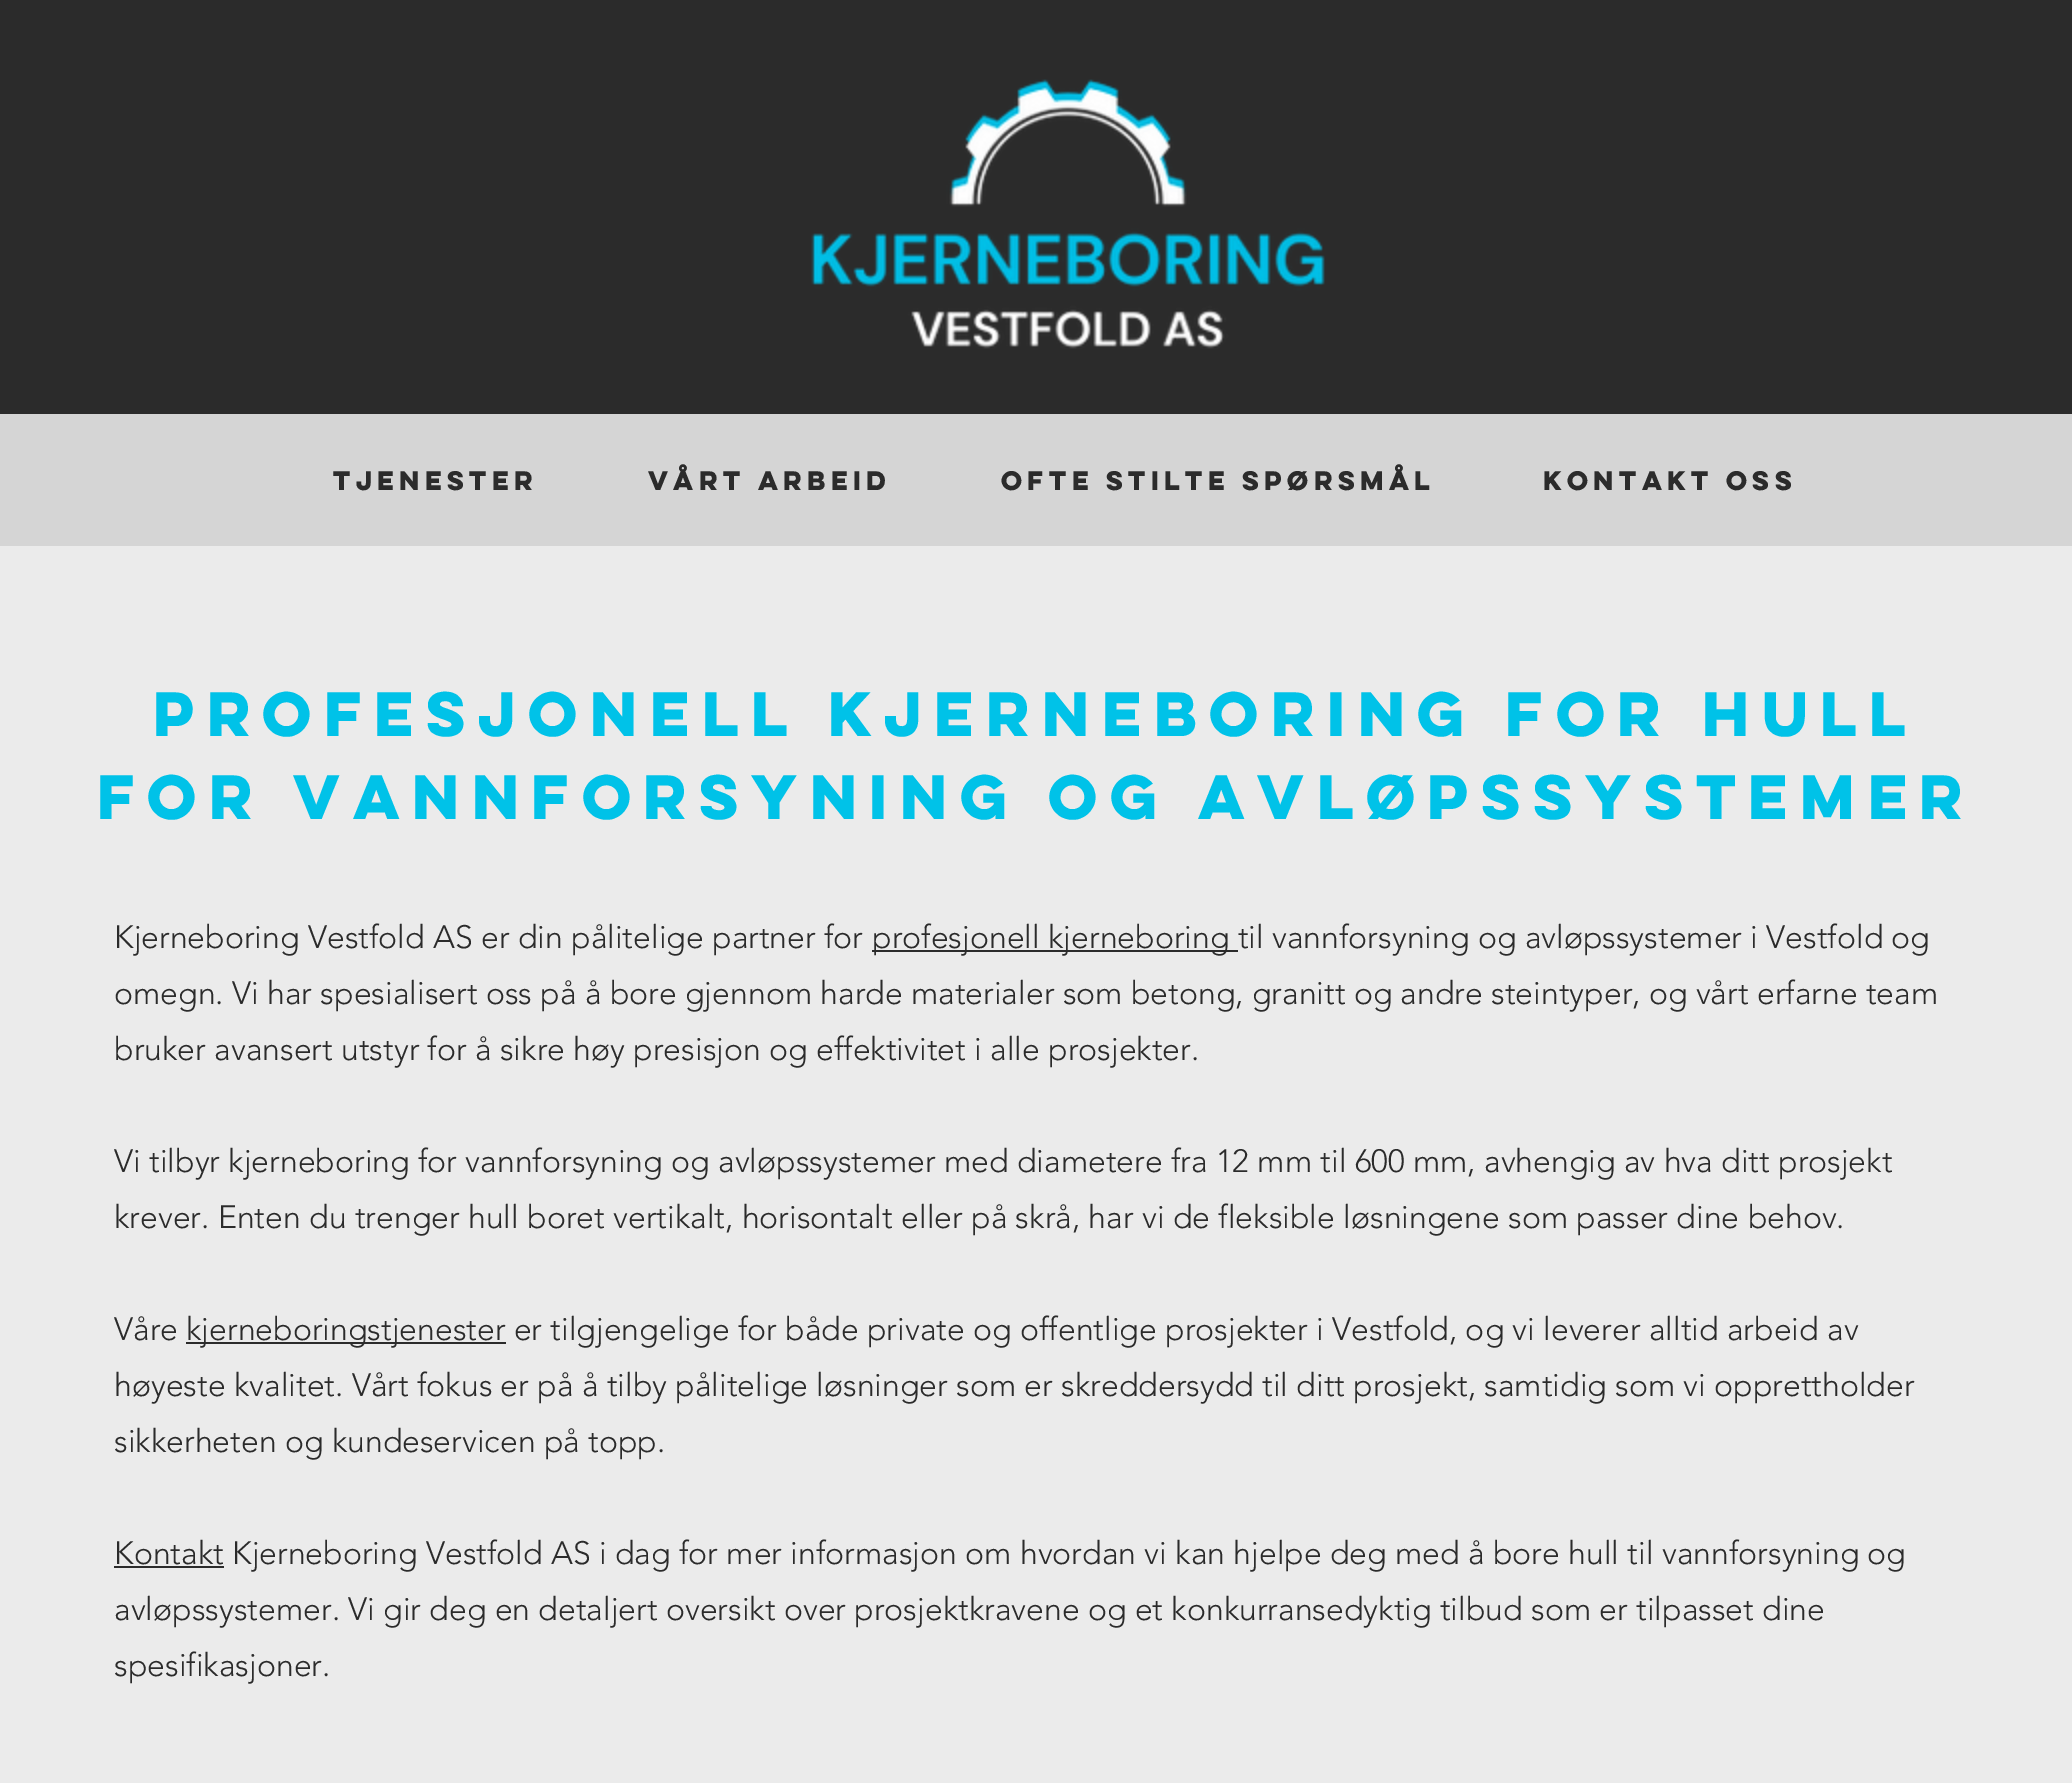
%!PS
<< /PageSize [2072 1783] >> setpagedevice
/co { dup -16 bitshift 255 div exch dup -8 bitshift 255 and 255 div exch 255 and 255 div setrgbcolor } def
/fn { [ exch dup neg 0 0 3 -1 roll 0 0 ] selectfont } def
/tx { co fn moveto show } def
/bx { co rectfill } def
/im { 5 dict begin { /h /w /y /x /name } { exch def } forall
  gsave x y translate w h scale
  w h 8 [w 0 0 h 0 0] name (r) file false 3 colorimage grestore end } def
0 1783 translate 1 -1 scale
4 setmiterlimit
0 0 2072 1783 16#D5D5D5 bx
0 0 2072 414 16#2B2B2B bx
(media/1.raw) 811 79 514 270 im
0 546 2072 1237 16#EBEBEB bx
872 950 366 2 16#2B2B2B bx
186 1342 320 2 16#2B2B2B bx
114 1566 110 2 16#2B2B2B bx
(TJENESTER) 333 490 /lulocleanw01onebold-Bold 24 16#2B2B2B tx
(VÅRT ARBEID) 648 490 /lulocleanw01onebold-Bold 24 16#2B2B2B tx
(OFTE STILTE SPØRSMÅL) 1001 490 /lulocleanw01onebold-Bold 24 16#2B2B2B tx
(KONTAKT OSS) 1543 490 /lulocleanw01onebold-Bold 24 16#2B2B2B tx
(Profesjonell kjerneboring for hull) 153 736 /lulocleanw01onebold-Bold 56 16#00C2E8 tx
(for vannforsyning og avløpssystemer) 97 819 /lulocleanw01onebold-Bold 56 16#00C2E8 tx
(Kjerneboring Vestfold AS er din pålitelige partner for) 114 948 /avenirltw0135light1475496-Light 32 16#2B2B2B tx
(profesjonell kjerneboring til vannforsyning og avløpssystemer i Vestfold og) 872 948 /avenirltw0135light1475496-Light 32 16#2B2B2B tx
(omegn. Vi har spesialisert oss på å bore gjennom harde materialer som betong, granitt og andre steintyper, og vårt erfarne team) 114 1004 /avenirltw0135light1475496-Light 32 16#2B2B2B tx
(bruker avansert utstyr for å sikre høy presisjon og effektivitet i alle prosjekter.) 114 1060 /avenirltw0135light1475496-Light 32 16#2B2B2B tx
(Vi tilbyr kjerneboring for vannforsyning og avløpssystemer med diametere fra 12 mm til 600 mm, avhengig av hva ditt prosjekt) 114 1172 /avenirltw0135light1475496-Light 32 16#2B2B2B tx
(krever. Enten du trenger hull boret vertikalt, horisontalt eller på skrå, har vi de fleksible løsningene som passer dine behov.) 114 1228 /avenirltw0135light1475496-Light 32 16#2B2B2B tx
(Våre) 114 1340 /avenirltw0135light1475496-Light 32 16#2B2B2B tx
(kjerneboringstjenester er tilgjengelige for både private og offentlige prosjekter i Vestfold, og vi leverer alltid arbeid av) 186 1340 /avenirltw0135light1475496-Light 32 16#2B2B2B tx
(høyeste kvalitet. Vårt fokus er på å tilby pålitelige løsninger som er skreddersydd til ditt prosjekt, samtidig som vi opprettholder) 114 1396 /avenirltw0135light1475496-Light 32 16#2B2B2B tx
(sikkerheten og kundeservicen på topp.) 114 1452 /avenirltw0135light1475496-Light 32 16#2B2B2B tx
(Kontakt Kjerneboring Vestfold AS i dag for mer informasjon om hvordan vi kan hjelpe deg med å bore hull til vannforsyning og) 114 1564 /avenirltw0135light1475496-Light 32 16#2B2B2B tx
(avløpssystemer. Vi gir deg en detaljert oversikt over prosjektkravene og et konkurransedyktig tilbud som er tilpasset dine) 114 1620 /avenirltw0135light1475496-Light 32 16#2B2B2B tx
(spesifikasjoner.) 114 1676 /avenirltw0135light1475496-Light 32 16#2B2B2B tx
showpage
